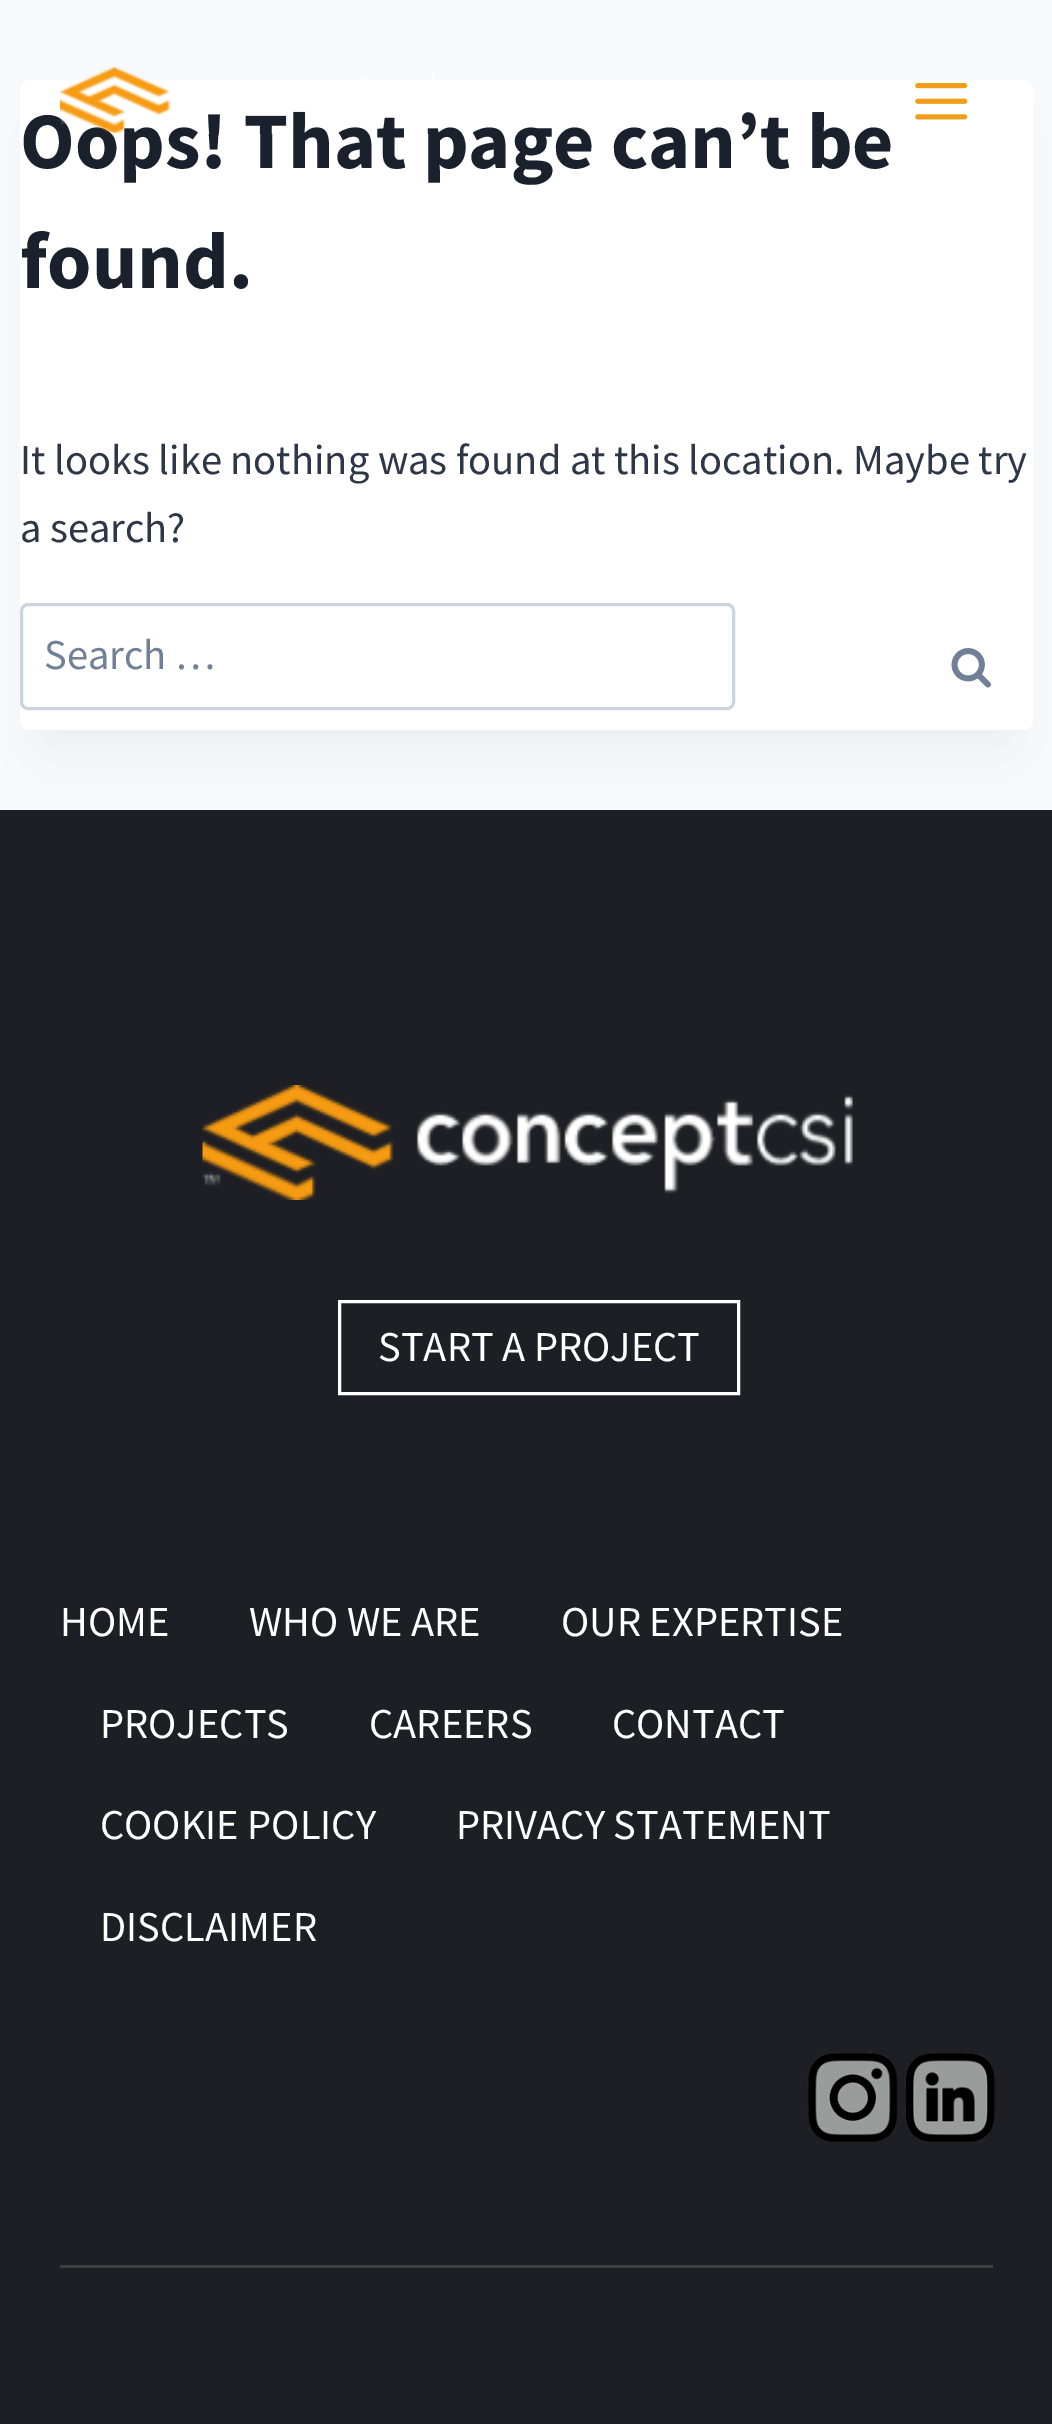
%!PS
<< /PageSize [1052 2424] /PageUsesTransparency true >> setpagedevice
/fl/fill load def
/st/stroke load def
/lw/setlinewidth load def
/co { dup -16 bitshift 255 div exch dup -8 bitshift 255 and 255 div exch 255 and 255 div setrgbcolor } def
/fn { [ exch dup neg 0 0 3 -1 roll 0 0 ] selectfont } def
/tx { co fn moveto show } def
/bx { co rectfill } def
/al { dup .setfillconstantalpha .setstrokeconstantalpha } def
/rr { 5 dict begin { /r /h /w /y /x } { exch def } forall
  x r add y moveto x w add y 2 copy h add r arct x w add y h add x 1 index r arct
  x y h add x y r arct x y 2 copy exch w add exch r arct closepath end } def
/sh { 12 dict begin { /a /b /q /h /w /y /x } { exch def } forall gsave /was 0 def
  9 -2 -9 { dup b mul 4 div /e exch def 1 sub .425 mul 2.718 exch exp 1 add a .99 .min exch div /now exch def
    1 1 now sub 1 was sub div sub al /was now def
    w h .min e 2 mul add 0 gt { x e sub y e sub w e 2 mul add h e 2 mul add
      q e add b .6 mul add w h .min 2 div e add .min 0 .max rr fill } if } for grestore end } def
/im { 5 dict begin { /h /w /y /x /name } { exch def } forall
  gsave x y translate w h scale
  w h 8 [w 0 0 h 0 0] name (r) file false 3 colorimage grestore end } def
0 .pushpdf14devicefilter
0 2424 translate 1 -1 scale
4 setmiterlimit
0 0 1052 2424 16#F7FAFC bx
0 810 1052 1614 16#1E1F24 bx
16#000000 co
45 143 963 600 0 31 .05 sh
16#FFFFFF co
20 80 1013 650 10 rr fl
(media/2.raw) 915 83 53 37 im
16#CBD5E0 co
3 lw
21.5 604.5 712 104 6.5 rr st
(media/3.raw) 951 648 40 40 im
(media/4.raw) 202 1085 651 115 im
16#FFFFFF co
339.5 1301.5 399 92 rectstroke
(media/5.raw) 807 2052 91 91 im
(media/6.raw) 905 2052 90 91 im
60 2265 933 3 16#3F3F42 bx
(Oops! That page can’t be) 20 168 /SourceSansPro-Bold 80 16#1A202C tx
(media/1.raw) 60 66 375 68 im
(found.) 20 288 /SourceSansPro-Bold 80 16#1A202C tx
(It looks like nothing was found at this location. Maybe try) 20 474 /SourceSansPro-Regular 42.5 16#2D3748 tx
(a search?) 20 542 /SourceSansPro-Regular 42.5 16#2D3748 tx
(Search …) 44 669 /SourceSansPro-Regular 42.5 16#718096 tx
(START A PROJECT) 378 1361 /SourceSansPro-Regular 42.5 16#FFFFFF tx
(HOME) 60 1636 /SourceSansPro-Regular 42.5 16#FFFFFF tx
(WHO WE ARE) 249 1636 /SourceSansPro-Regular 42.5 16#FFFFFF tx
(OUR EXPERTISE) 561 1636 /SourceSansPro-Regular 42.5 16#FFFFFF tx
(PROJECTS) 100 1738 /SourceSansPro-Regular 42.5 16#FFFFFF tx
(CAREERS) 369 1738 /SourceSansPro-Regular 42.5 16#FFFFFF tx
(CONTACT) 612 1738 /SourceSansPro-Regular 42.5 16#FFFFFF tx
(COOKIE POLICY) 100 1839 /SourceSansPro-Regular 42.5 16#FFFFFF tx
(PRIVACY STATEMENT) 456 1839 /SourceSansPro-Regular 42.5 16#FFFFFF tx
(DISCLAIMER) 100 1941 /SourceSansPro-Regular 42.5 16#FFFFFF tx
.poppdf14devicefilter showpage
